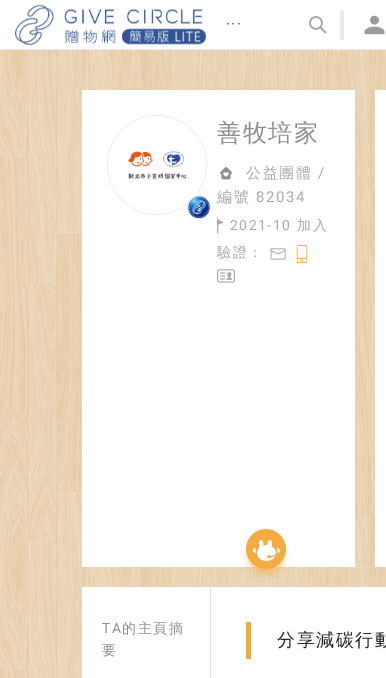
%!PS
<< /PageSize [386 678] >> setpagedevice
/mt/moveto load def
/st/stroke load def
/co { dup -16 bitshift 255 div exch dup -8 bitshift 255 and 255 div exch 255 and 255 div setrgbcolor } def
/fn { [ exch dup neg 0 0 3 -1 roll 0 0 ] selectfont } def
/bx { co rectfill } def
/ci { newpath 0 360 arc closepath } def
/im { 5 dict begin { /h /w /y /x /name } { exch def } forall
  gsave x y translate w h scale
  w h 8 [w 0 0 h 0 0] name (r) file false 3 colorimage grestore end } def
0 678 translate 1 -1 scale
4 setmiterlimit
0 0 386 678 16#FFFFFF bx
0 49 386 1 16#EBEBEB bx
(media/1.raw) 15 4 191 41 im
(media/2.raw) 309 16 18 18 im
340 10 4 30 16#EBEBEB bx
(media/3.raw) 364 15 21 20 im
(media/4.raw) 0 50 386 628 im
82 90 273 477 16#FFFFFF bx
16#EBEBEB co
157 165 49.5 ci st
(media/5.raw) 108 116 98 98 im
(media/6.raw) 187 195 24 24 im
(media/7.raw) 220 167 12 13 im
(media/8.raw) 217 218 7 16 im
(media/9.raw) 270 248 16 12 im
(media/10.raw) 296 245 12 18 im
(media/11.raw) 217 269 18 14 im
375 90 11 477 16#FFFFFF bx
82 587 304 91 16#FFFFFF bx
210 587 1 91 16#E0E0E0 bx
246 622 5 37 16#F5AA38 bx
(media/12.raw) 241 529 50 49 im
/Roboto-Regular 15 fn
16#595959 co
226 29 mt 1.5 0 (···) ashow
/WenQuanYiZenHei-Medium 24 fn
16#8F8E94 co
217 141 mt 1.5 0 (善牧培家) ashow
/WenQuanYiZenHei-Medium 15 fn
16#AAAAAA co
246 178 mt 1.5 0 (公益團體) ashow
/Roboto-Regular 15 fn
318 178 mt 1.5 0 (/) ashow
/WenQuanYiZenHei-Medium 15 fn
217 202 mt 1.5 0 (編號) ashow
/Roboto-Regular 15 fn
256 202 mt 1.5 0 (82034) ashow
/Roboto-Regular 14 fn
230 230 mt 1.5 0 (2021-10) ashow
/WenQuanYiZenHei-Medium 14 fn
297 230 mt 1.5 0 (加入) ashow
217 257 mt 1.5 0 (驗證：) ashow
/Roboto-Regular 14 fn
16#8F8E94 co
102 633 mt 1.5 0 (TA) ashow
/WenQuanYiZenHei-Medium 14 fn
122 633 mt 1.5 0 (的主頁摘) ashow
102 655 mt 1.5 0 (要) ashow
/WenQuanYiZenHei-Medium 18 fn
16#28292B co
277 646 mt 1.5 0 (分享減碳行動) ashow
showpage
